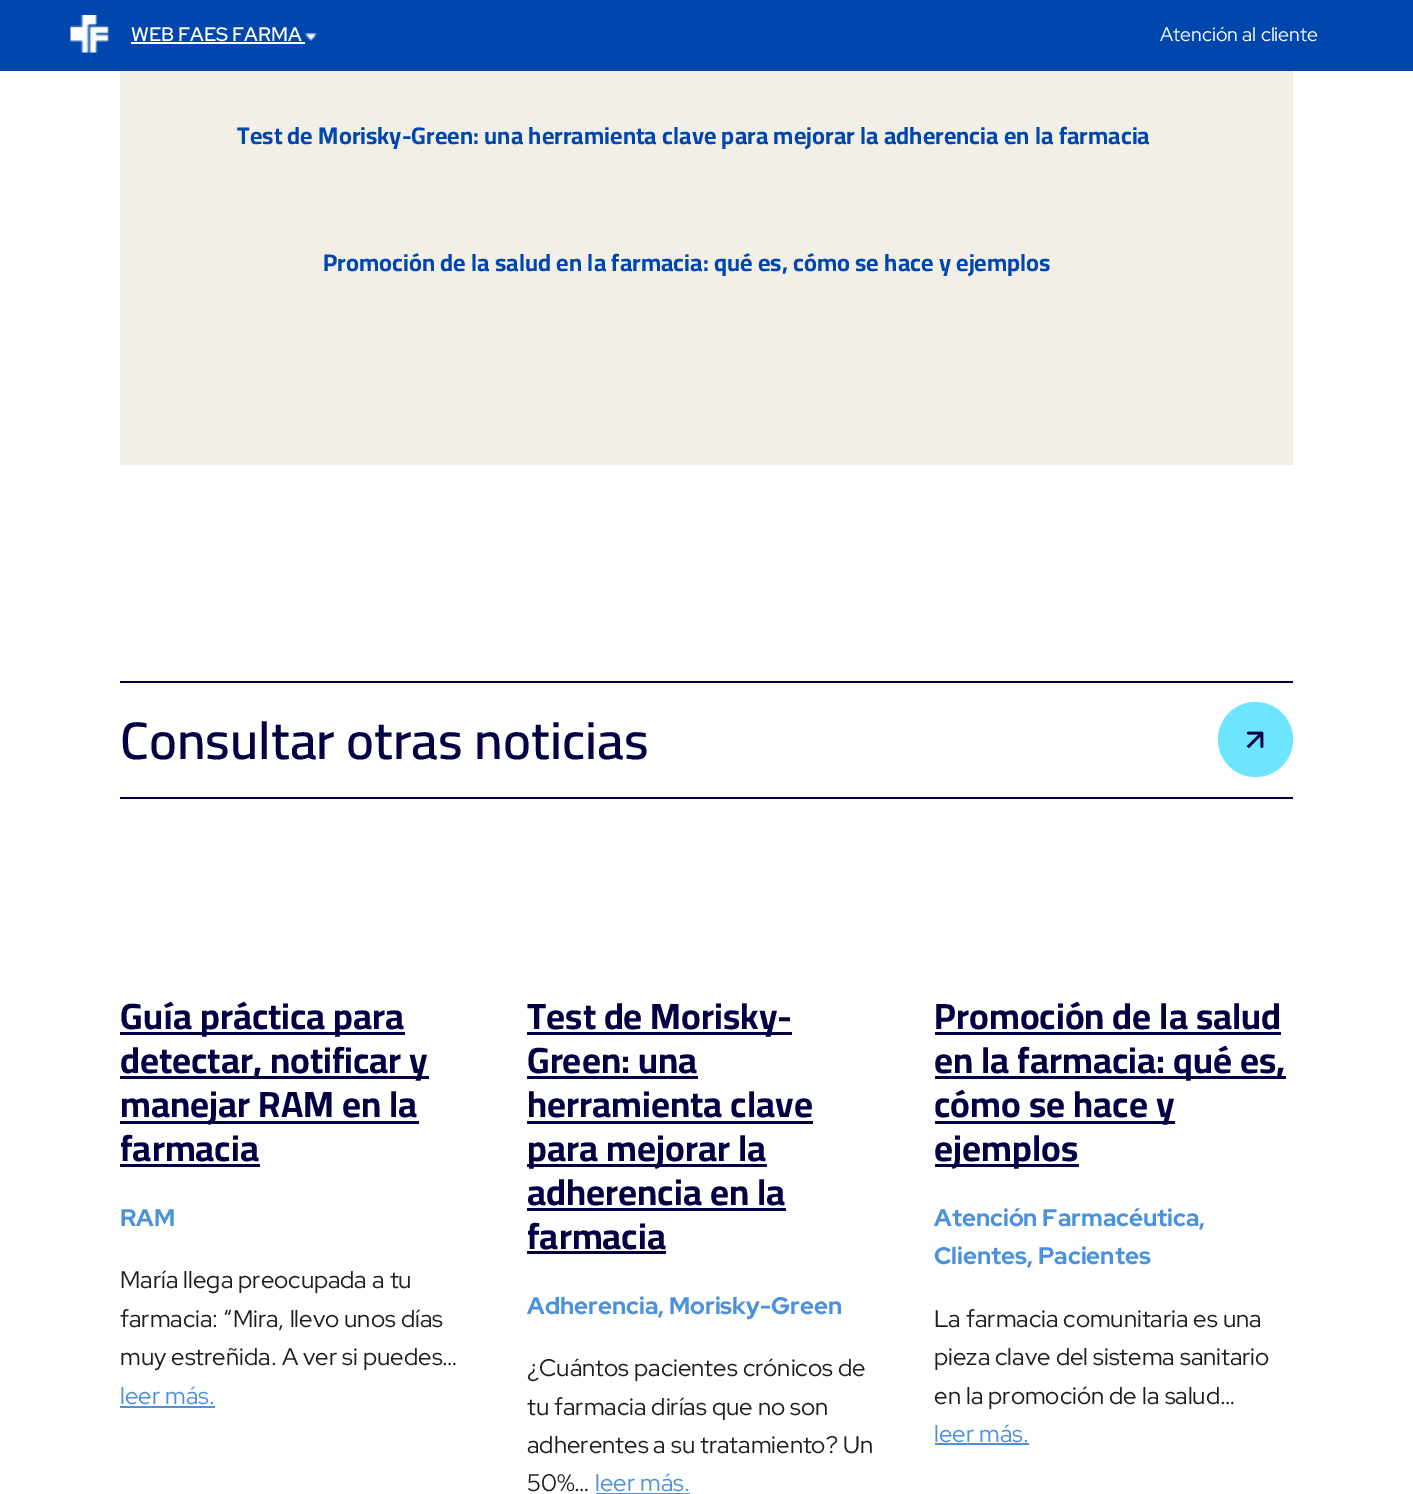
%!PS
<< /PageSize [1413 1494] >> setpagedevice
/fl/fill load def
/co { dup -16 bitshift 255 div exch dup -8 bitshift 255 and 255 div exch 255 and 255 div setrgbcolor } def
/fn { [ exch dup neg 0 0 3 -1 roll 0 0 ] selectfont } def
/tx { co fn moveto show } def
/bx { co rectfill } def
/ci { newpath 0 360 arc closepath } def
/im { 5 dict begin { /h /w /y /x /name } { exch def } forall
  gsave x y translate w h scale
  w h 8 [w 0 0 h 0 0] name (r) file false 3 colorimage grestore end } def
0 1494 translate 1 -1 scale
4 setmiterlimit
0 0 1413 1494 16#FFFFFF bx
0 0 1413 71 16#0046AD bx
(media/1.raw) 70 15 39 38 im
131 42 174 2 16#FFFFFF bx
(media/2.raw) 304 33 13 8 im
120 71 1173 394 16#F2F0E6 bx
120 681 1173 2 16#030044 bx
120 797 1173 2 16#030044 bx
16#6EE5FF co
1255.5 739.5 37.5 ci fl
(media/3.raw) 1246 731 18 18 im
120 1032 285 3 16#030044 bx
120 1076 309 3 16#030044 bx
120 1121 299 3 16#030044 bx
120 1164 140 3 16#030044 bx
120 1406 95 2 16#4B92DB bx
527 1032 265 3 16#030044 bx
527 1076 171 3 16#030044 bx
527 1121 286 3 16#030044 bx
527 1164 240 3 16#030044 bx
527 1208 259 3 16#030044 bx
527 1251 139 3 16#030044 bx
596 1493 94 1 16#4B92DB bx
935 1032 346 3 16#030044 bx
935 1076 351 3 16#030044 bx
935 1121 240 3 16#030044 bx
935 1164 144 3 16#030044 bx
935 1443 94 2 16#4B92DB bx
(WEB FAES FARMA) 131 41 /RedHatDisplay-SemiBold 19.5 16#FFFFFF tx
(Atención al cliente) 1160 41 /RedHatDisplay-Regular 19.5 16#FFFFFF tx
(Test de Morisky-Green: una herramienta clave para mejorar la adherencia en la farmacia) 237 144 /Cairo-Bold 24 16#0046AD tx
(Promoción de la salud en la farmacia: qué es, cómo se hace y ejemplos) 323 271 /Cairo-Bold 24 16#0046AD tx
(Consultar otras noticias) 120 759 /Cairo-SemiBold 52.75 16#030044 tx
(Guía práctica para) 120 1029 /Cairo-Bold 36.5 16#030044 tx
(detectar, notificar y) 120 1073 /Cairo-Bold 36.5 16#030044 tx
(manejar RAM en la) 120 1117 /Cairo-Bold 36.5 16#030044 tx
(farmacia) 120 1161 /Cairo-Bold 36.5 16#030044 tx
(RAM) 120 1226 /RedHatDisplay-Bold 24 16#4B92DB tx
(María llega preocupada a tu) 120 1288 /RedHatDisplay-Regular 24 16#1E1E1E tx
(farmacia: “Mira, llevo unos días) 120 1327 /RedHatDisplay-Regular 24 16#1E1E1E tx
(muy estreñida. A ver si puedes…) 120 1365 /RedHatDisplay-Regular 24 16#1E1E1E tx
(leer más.) 120 1404 /RedHatDisplay-Regular 24 16#4B92DB tx
(Test de Morisky-) 527 1029 /Cairo-Bold 36.5 16#030044 tx
(Green: una) 527 1073 /Cairo-Bold 36.5 16#030044 tx
(herramienta clave) 527 1117 /Cairo-Bold 36.5 16#030044 tx
(para mejorar la) 527 1161 /Cairo-Bold 36.5 16#030044 tx
(adherencia en la) 527 1205 /Cairo-Bold 36.5 16#030044 tx
(farmacia) 527 1249 /Cairo-Bold 36.5 16#030044 tx
(Adherencia, Morisky-Green) 527 1314 /RedHatDisplay-Bold 24 16#4B92DB tx
(¿Cuántos pacientes crónicos de) 527 1376 /RedHatDisplay-Regular 24 16#1E1E1E tx
(tu farmacia dirías que no son) 527 1415 /RedHatDisplay-Regular 24 16#1E1E1E tx
(adherentes a su tratamiento? Un) 527 1453 /RedHatDisplay-Regular 24 16#1E1E1E tx
(50%…) 527 1491 /RedHatDisplay-Regular 24 16#1E1E1E tx
(leer más.) 595 1491 /RedHatDisplay-Regular 24 16#4B92DB tx
(Promoción de la salud) 934 1029 /Cairo-Bold 36.5 16#030044 tx
(en la farmacia: qué es,) 934 1073 /Cairo-Bold 36.5 16#030044 tx
(cómo se hace y) 934 1117 /Cairo-Bold 36.5 16#030044 tx
(ejemplos) 934 1161 /Cairo-Bold 36.5 16#030044 tx
(Atención Farmacéutica,) 934 1226 /RedHatDisplay-Bold 24 16#4B92DB tx
(Clientes, Pacientes) 934 1264 /RedHatDisplay-Bold 24 16#4B92DB tx
(La farmacia comunitaria es una) 934 1327 /RedHatDisplay-Regular 24 16#1E1E1E tx
(pieza clave del sistema sanitario) 934 1365 /RedHatDisplay-Regular 24 16#1E1E1E tx
(en la promoción de la salud…) 934 1404 /RedHatDisplay-Regular 24 16#1E1E1E tx
(leer más.) 934 1442 /RedHatDisplay-Regular 24 16#4B92DB tx
showpage
